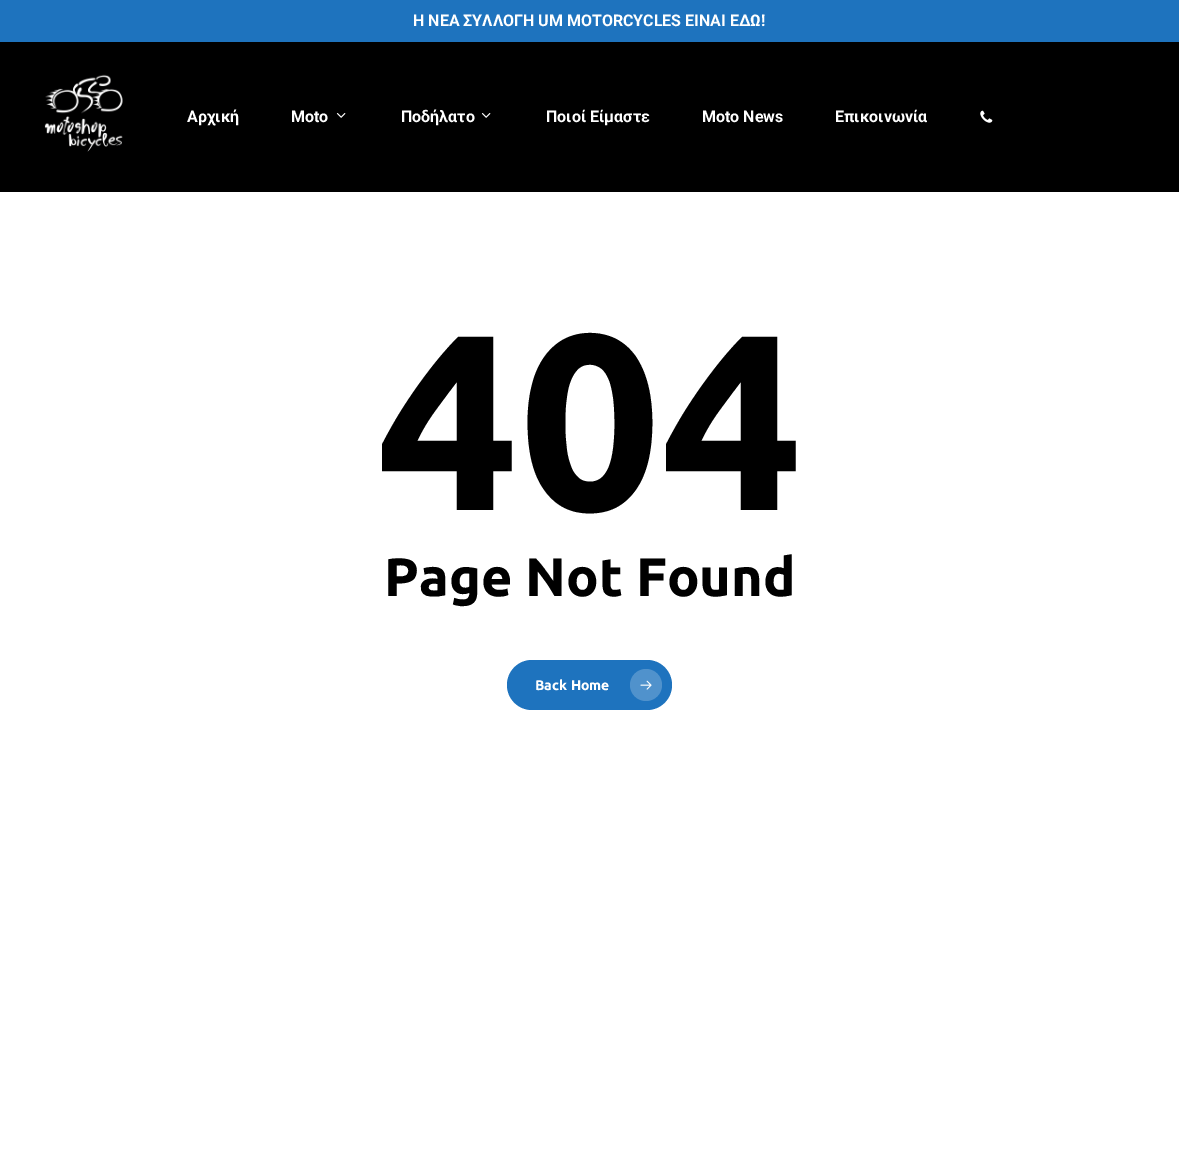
%!PS
<< /PageSize [1179 1156] >> setpagedevice
/fl/fill load def
/co { dup -16 bitshift 255 div exch dup -8 bitshift 255 and 255 div exch 255 and 255 div setrgbcolor } def
/fn { [ exch dup neg 0 0 3 -1 roll 0 0 ] selectfont } def
/tx { co fn moveto show } def
/bx { co rectfill } def
/ci { newpath 0 360 arc closepath } def
/rr { 5 dict begin { /r /h /w /y /x } { exch def } forall
  x r add y moveto x w add y 2 copy h add r arct x w add y h add x 1 index r arct
  x y h add x y r arct x y 2 copy exch w add exch r arct closepath end } def
/im { 5 dict begin { /h /w /y /x /name } { exch def } forall
  gsave x y translate w h scale
  w h 8 [w 0 0 h 0 0] name (r) file false 3 colorimage grestore end } def
0 1156 translate 1 -1 scale
4 setmiterlimit
0 0 1179 1156 16#FFFFFF bx
0 0 1179 42 16#1E73BE bx
0 42 1179 150 16#000000 bx
(media/1.raw) 44 74 79 78 im
(media/2.raw) 336 113 10 5 im
(media/2.raw) 481 113 10 5 im
(media/3.raw) 980 110 13 13 im
16#1E73BE co
507 660 165 50 25 rr fl
16#5092CC co
646 685 16 ci fl
(media/4.raw) 640 680 12 10 im
(H ΝΕΑ ΣΥΛΛΟΓΗ UM MOTORCYCLES ΕΙΝΑΙ ΕΔΩ!) 413 26 /Roboto-Bold 16 16#FFFFFF tx
(Αρχική) 187 122 /Roboto-Bold 16 16#FFFFFF tx
(Moto) 291 122 /Roboto-Bold 16 16#FFFFFF tx
(Ποδήλατο) 401 122 /Roboto-Bold 16 16#FFFFFF tx
(Ποιοί Είμαστε) 546 122 /Roboto-Bold 16 16#FFFFFF tx
(Moto News) 702 122 /Roboto-Bold 16 16#FFFFFF tx
(Επικοινωνία) 835 122 /Roboto-Bold 16 16#FFFFFF tx
(404) 377 510 /Ubuntu-Bold 250 16#000000 tx
(Page Not Found) 384 596 /Ubuntu-Bold 54 16#000000 tx
(Back Home) 535 690 /Ubuntu-Bold 14 16#FFFFFF tx
showpage
